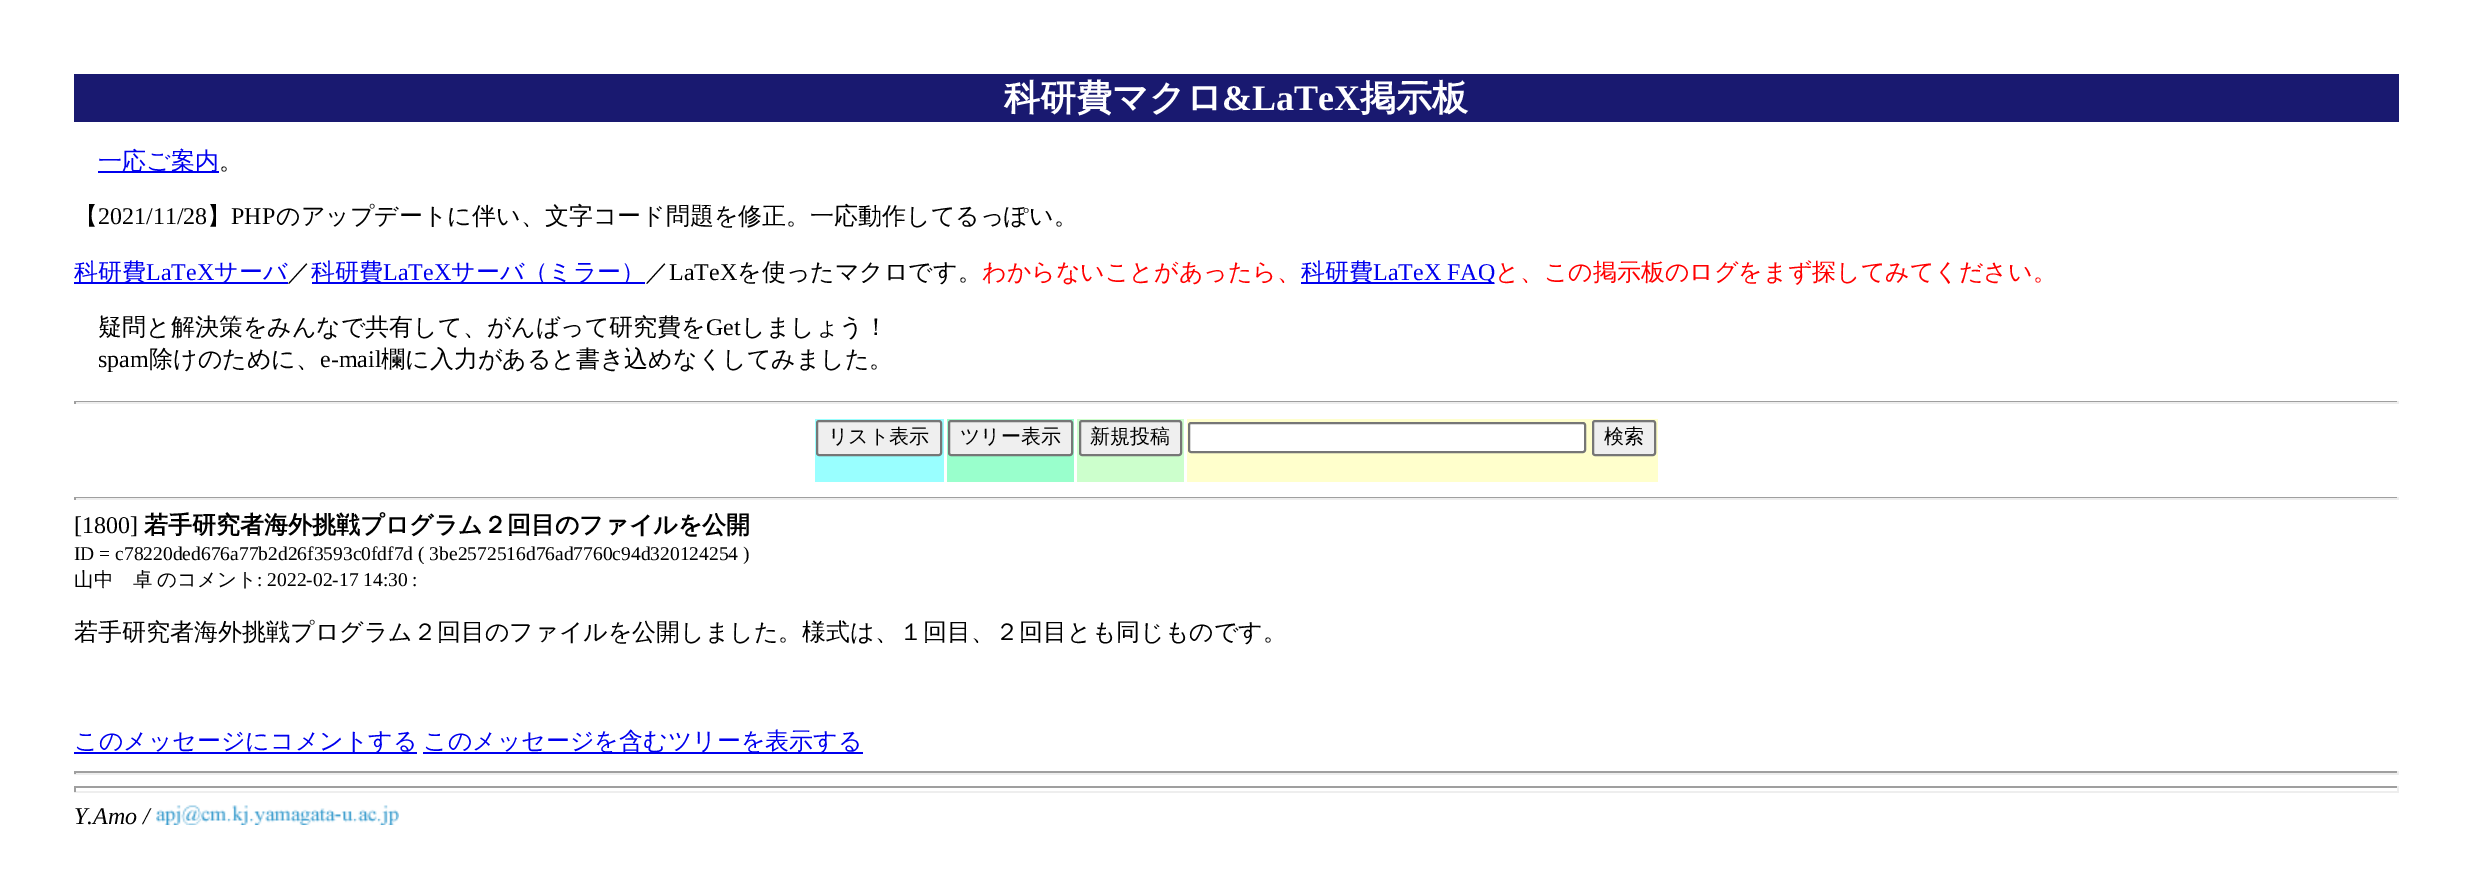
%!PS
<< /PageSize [2472 892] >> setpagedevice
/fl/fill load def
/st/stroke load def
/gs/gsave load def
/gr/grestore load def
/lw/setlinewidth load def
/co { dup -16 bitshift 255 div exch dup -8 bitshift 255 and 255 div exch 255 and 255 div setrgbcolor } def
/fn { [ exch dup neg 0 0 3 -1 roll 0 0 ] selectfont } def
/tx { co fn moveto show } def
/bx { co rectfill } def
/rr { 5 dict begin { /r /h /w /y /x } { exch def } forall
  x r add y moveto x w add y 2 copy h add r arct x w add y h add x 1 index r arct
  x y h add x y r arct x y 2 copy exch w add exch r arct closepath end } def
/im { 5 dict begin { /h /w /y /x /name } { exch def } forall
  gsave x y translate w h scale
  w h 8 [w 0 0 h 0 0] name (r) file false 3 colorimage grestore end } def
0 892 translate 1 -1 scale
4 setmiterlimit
0 0 2472 892 16#FFFFFF bx
74 74 2325 48 16#191970 bx
98 171 121 2 16#0000EE bx
74 282 214 2 16#0000EE bx
312 282 333 2 16#0000EE bx
1301 282 193 2 16#0000EE bx
74 401 2325 1 16#9F9F9F bx
2397 401 2 3 16#EEEEEE bx
74 402 2325 2 16#EEEEEE bx
74 401 2 3 16#9F9F9F bx
815 419 129 63 16#99FFFF bx
16#EFEFEF co
817 421 124 34 2 rr gs fl gr
16#767676 co
2 lw
st
947 419 127 63 16#99FFCC bx
16#EFEFEF co
949 421 123 34 2 rr gs fl gr
16#767676 co
st
1077 419 107 63 16#CCFFCC bx
16#EFEFEF co
1080 421 101 34 2 rr gs fl gr
16#767676 co
st
1187 419 471 63 16#FFFFCC bx
16#FFFFFF co
1189 423 396 29 2 rr gs fl gr
16#767676 co
st
16#EFEFEF co
1593 421 62 34 2 rr gs fl gr
16#767676 co
st
74 497 2325 1 16#9F9F9F bx
2397 497 2 3 16#EEEEEE bx
74 498 2325 2 16#EEEEEE bx
74 497 2 3 16#9F9F9F bx
74 752 343 2 16#0000EE bx
423 752 440 2 16#0000EE bx
74 771 2325 2 16#9F9F9F bx
2397 771 2 3 16#EEEEEE bx
74 773 2325 2 16#EEEEEE bx
74 771 2 3 16#9F9F9F bx
74 786 2325 2 16#9F9F9F bx
2397 786 2 6 16#EEEEEE bx
74 791 2325 2 16#EEEEEE bx
74 786 2 6 16#9F9F9F bx
(media/1.raw) 156 805 243 20 im
(科研費マクロ) 1004 110 /WenQuanYiZenHei-Bold 36 16#FFFFFF tx
(&LaTeX) 1222 110 /LiberationSerif-Bold 36 16#FFFFFF tx
(掲示板) 1360 110 /WenQuanYiZenHei-Bold 36 16#FFFFFF tx
(一応ご案内) 98 169 /WenQuanYiZenHei-Medium 24 16#0000EE tx
(。) 219 169 /WenQuanYiZenHei-Medium 24 16#000000 tx
(【) 74 224 /WenQuanYiZenHei-Medium 24 16#000000 tx
(2021/11/28) 98 224 /LiberationSerif-Regular 24 16#000000 tx
(】) 207 224 /WenQuanYiZenHei-Medium 24 16#000000 tx
(PHP) 231 224 /LiberationSerif-Regular 24 16#000000 tx
(のアップデートに伴い、文字コード問題を修正。一応動作してるっぽい。) 276 224 /WenQuanYiZenHei-Medium 24 16#000000 tx
(科研費) 74 280 /WenQuanYiZenHei-Medium 24 16#0000EE tx
(LaTeX) 146 280 /LiberationSerif-Regular 24 16#0000EE tx
(サーバ) 214 280 /WenQuanYiZenHei-Medium 24 16#0000EE tx
(／) 287 280 /WenQuanYiZenHei-Medium 24 16#000000 tx
(科研費) 311 280 /WenQuanYiZenHei-Medium 24 16#0000EE tx
(LaTeX) 383 280 /LiberationSerif-Regular 24 16#0000EE tx
(サーバ（ミラー）) 451 280 /WenQuanYiZenHei-Medium 24 16#0000EE tx
(／) 645 280 /WenQuanYiZenHei-Medium 24 16#000000 tx
(LaTeX) 669 280 /LiberationSerif-Regular 24 16#000000 tx
(を使ったマクロです。) 737 280 /WenQuanYiZenHei-Medium 24 16#000000 tx
(わからないことがあったら、) 982 280 /WenQuanYiZenHei-Medium 24 16#FF0000 tx
(科研費) 1301 280 /WenQuanYiZenHei-Medium 24 16#0000EE tx
(LaTeX FAQ) 1373 280 /LiberationSerif-Regular 24 16#0000EE tx
(と、この掲示板のログをまず探してみてください。) 1495 280 /WenQuanYiZenHei-Medium 24 16#FF0000 tx
(疑問と解決策をみんなで共有して、がんばって研究費を) 98 335 /WenQuanYiZenHei-Medium 24 16#000000 tx
(Get) 706 335 /LiberationSerif-Regular 24 16#000000 tx
(しましょう！) 741 335 /WenQuanYiZenHei-Medium 24 16#000000 tx
(spam) 98 367 /LiberationSerif-Regular 24 16#000000 tx
(除けのために、) 149 367 /WenQuanYiZenHei-Medium 24 16#000000 tx
(e-mail) 320 367 /LiberationSerif-Regular 24 16#000000 tx
(欄に入力があると書き込めなくしてみました。) 381 367 /WenQuanYiZenHei-Medium 24 16#000000 tx
(リスト表示) 828 443 /WenQuanYiZenHei-Medium 20 16#000000 tx
(ツリー表示) 960 443 /WenQuanYiZenHei-Medium 20 16#000000 tx
(新規投稿) 1090 443 /WenQuanYiZenHei-Medium 20 16#000000 tx
(検索) 1604 443 /WenQuanYiZenHei-Medium 20 16#000000 tx
([1800]) 74 533 /LiberationSerif-Regular 24 16#000000 tx
(若手研究者海外挑戦プログラム２回目のファイルを公開) 144 533 /WenQuanYiZenHei-Bold 24 16#000000 tx
(ID = c78220ded676a77b2d26f3593c0fdf7d \( 3be2572516d76ad7760c94d320124254 \)) 74 560 /LiberationSerif-Regular 19.5 16#000000 tx
(山中　卓) 74 586 /WenQuanYiZenHei-Medium 19.5 16#000000 tx
(のコメント) 157 586 /WenQuanYiZenHei-Medium 19.5 16#000000 tx
(: 2022-02-17 14:30 :) 257 586 /LiberationSerif-Regular 19.5 16#000000 tx
(若手研究者海外挑戦プログラム２回目のファイルを公開しました。様式は、１回目、２回目とも同じものです。) 74 640 /WenQuanYiZenHei-Medium 24 16#000000 tx
(このメッセージにコメントする) 74 749 /WenQuanYiZenHei-Medium 24 16#0000EE tx
(このメッセージを含むツリーを表示する) 423 749 /WenQuanYiZenHei-Medium 24 16#0000EE tx
(Y.Amo /) 74 824 /LiberationSerif-Italic 24 16#000000 tx
showpage
